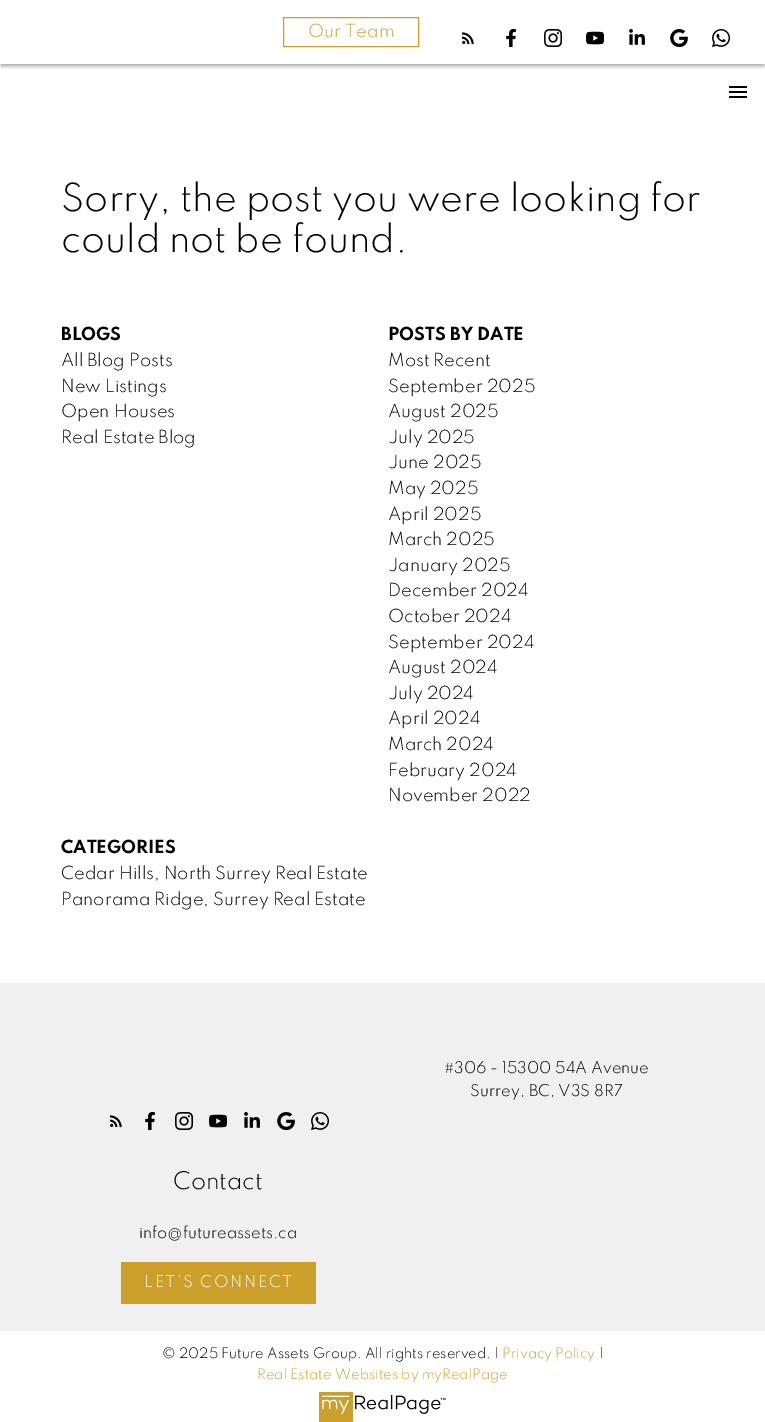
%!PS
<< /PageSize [765 1422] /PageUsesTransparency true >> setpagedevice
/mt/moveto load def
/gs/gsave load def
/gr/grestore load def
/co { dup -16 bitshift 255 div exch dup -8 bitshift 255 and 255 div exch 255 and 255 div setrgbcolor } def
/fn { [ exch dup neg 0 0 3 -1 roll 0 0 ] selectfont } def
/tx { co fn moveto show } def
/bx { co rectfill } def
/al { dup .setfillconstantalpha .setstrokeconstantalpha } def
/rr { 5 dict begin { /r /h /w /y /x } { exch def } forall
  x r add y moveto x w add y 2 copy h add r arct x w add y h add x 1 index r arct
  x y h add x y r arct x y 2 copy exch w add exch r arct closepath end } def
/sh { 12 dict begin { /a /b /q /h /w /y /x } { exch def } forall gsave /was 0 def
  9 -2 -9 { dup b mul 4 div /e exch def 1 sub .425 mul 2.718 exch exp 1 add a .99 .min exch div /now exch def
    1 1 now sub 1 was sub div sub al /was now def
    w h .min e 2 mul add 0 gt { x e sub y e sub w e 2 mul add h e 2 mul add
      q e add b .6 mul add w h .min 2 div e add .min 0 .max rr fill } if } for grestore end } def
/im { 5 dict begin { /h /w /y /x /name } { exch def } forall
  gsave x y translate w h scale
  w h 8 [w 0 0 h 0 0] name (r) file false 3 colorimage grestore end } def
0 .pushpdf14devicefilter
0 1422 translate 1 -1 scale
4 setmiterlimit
0 0 765 1422 16#FFFFFF bx
gs
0 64 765 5 rectclip
16#000000 co
0 1 765 64 0 4 .12 sh
0 3 765 64 0 2 .14 sh
gr
gs
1 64 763 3 rectclip
16#000000 co
2 5 761 60 0 1.5 .2 sh
gr
16#CB9F2A co
283.5 17.5 135 29 rectstroke
(media/1.raw) 462 32 12 13 im
(media/2.raw) 506 29 10 18 im
(media/3.raw) 544 29 18 18 im
(media/4.raw) 586 31 18 14 im
(media/5.raw) 629 29 16 16 im
(media/6.raw) 670 29 18 18 im
(media/7.raw) 712 29 18 18 im
(media/8.raw) 729 86 18 12 im
0 983 765 348 16#F0F0F0 bx
(media/9.raw) 110 1115 12 13 im
(media/10.raw) 145 1112 10 18 im
(media/11.raw) 175 1112 18 18 im
(media/12.raw) 209 1114 18 14 im
(media/13.raw) 244 1112 16 16 im
(media/14.raw) 277 1112 18 18 im
(media/15.raw) 311 1112 18 18 im
121 1262 195 42 16#CB9F2A bx
(media/16.raw) 319 1392 127 30 im
(Our Team) 308 37 /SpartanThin-Light 16 16#CB9F2A tx
(Sorry, the post you were looking for) 61 211 /SpartanThin-Light 34.2 16#000000 tx
(could not be found.) 61 252 /SpartanThin-Light 34.2 16#000000 tx
(BLOGS) 61 340 /SpartanThin-Bold 16 16#000000 tx
(All Blog Posts) 61 366 /SpartanThin-Light 16 16#000000 tx
(New Listings) 61 392 /SpartanThin-Light 16 16#000000 tx
(Open Houses) 61 417 /SpartanThin-Light 16 16#000000 tx
(Real Estate Blog) 61 443 /SpartanThin-Light 16 16#000000 tx
(POSTS BY DATE) 388 340 /SpartanThin-Bold 16 16#000000 tx
(Most Recent) 388 366 /SpartanThin-Light 16 16#000000 tx
(September 2025) 388 392 /SpartanThin-Light 16 16#000000 tx
(August 2025) 388 417 /SpartanThin-Light 16 16#000000 tx
(July 2025) 388 443 /SpartanThin-Light 16 16#000000 tx
(June 2025) 388 468 /SpartanThin-Light 16 16#000000 tx
(May 2025) 388 494 /SpartanThin-Light 16 16#000000 tx
(April 2025) 388 520 /SpartanThin-Light 16 16#000000 tx
(March 2025) 388 545 /SpartanThin-Light 16 16#000000 tx
(January 2025) 388 571 /SpartanThin-Light 16 16#000000 tx
(December 2024) 388 596 /SpartanThin-Light 16 16#000000 tx
(October 2024) 388 622 /SpartanThin-Light 16 16#000000 tx
(September 2024) 388 648 /SpartanThin-Light 16 16#000000 tx
(August 2024) 388 673 /SpartanThin-Light 16 16#000000 tx
(July 2024) 388 699 /SpartanThin-Light 16 16#000000 tx
(April 2024) 388 724 /SpartanThin-Light 16 16#000000 tx
(March 2024) 388 750 /SpartanThin-Light 16 16#000000 tx
(February 2024) 388 776 /SpartanThin-Light 16 16#000000 tx
(November 2022) 388 801 /SpartanThin-Light 16 16#000000 tx
(CATEGORIES) 61 853 /SpartanThin-Bold 16 16#000000 tx
(Cedar Hills, North Surrey Real Estate) 61 879 /SpartanThin-Light 16 16#000000 tx
(Panorama Ridge, Surrey Real Estate) 61 905 /SpartanThin-Light 16 16#000000 tx
(#306 - 15300 54A Avenue) 444 1073 /SpartanThin-Light 14.4 16#000000 tx
(Surrey, BC, V3S 8R7) 470 1096 /SpartanThin-Light 14.4 16#000000 tx
(Contact) 173 1189 /SpartanThin-Light 21.5 16#000000 tx
(info@futureassets.ca) 139 1238 /SpartanThin-Light 14.4 16#000000 tx
/SpartanThin-Light 14.5 fn
16#FFFFFF co
144 1287 mt 1.6 0 (LET'S CONNECT) ashow
(© 2025 Future Assets Group. All rights reserved. |) 162 1358 /SpartanThin-Light 12.8 16#000000 tx
(Privacy Policy) 502 1358 /SpartanThin-Light 12.8 16#CB9F2A tx
(|) 599 1358 /SpartanThin-Light 12.8 16#000000 tx
(Real Estate Websites by myRealPage) 257 1379 /SpartanThin-Light 12.8 16#CB9F2A tx
.poppdf14devicefilter showpage
